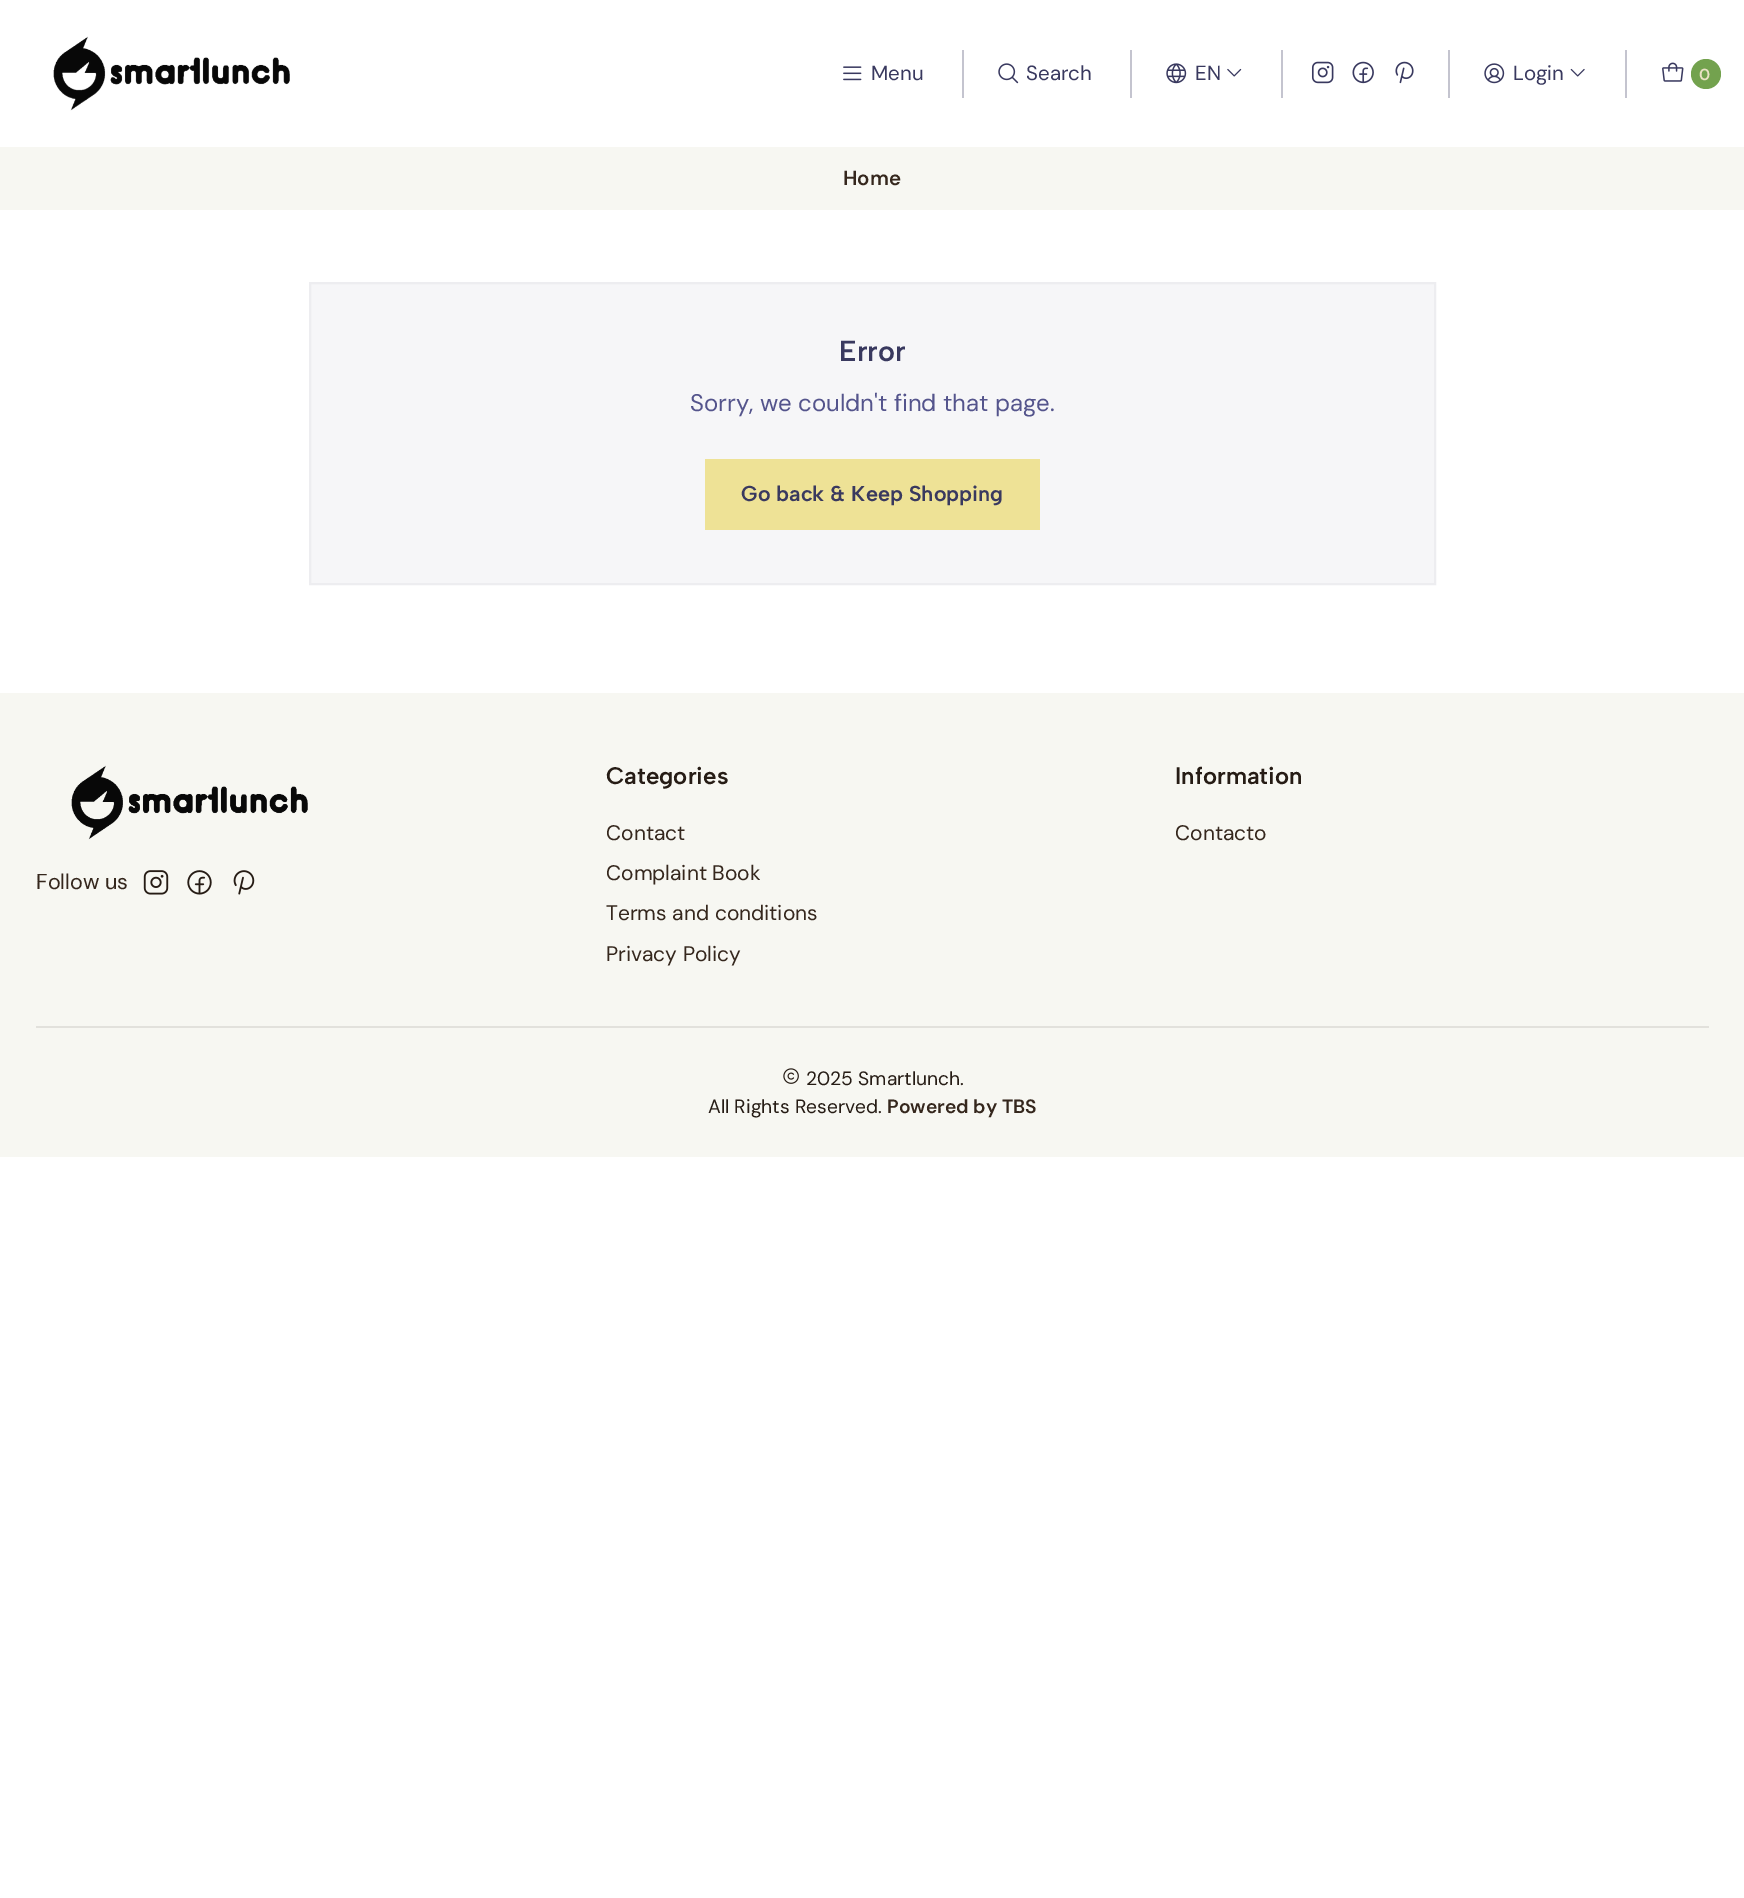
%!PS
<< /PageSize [1744 1898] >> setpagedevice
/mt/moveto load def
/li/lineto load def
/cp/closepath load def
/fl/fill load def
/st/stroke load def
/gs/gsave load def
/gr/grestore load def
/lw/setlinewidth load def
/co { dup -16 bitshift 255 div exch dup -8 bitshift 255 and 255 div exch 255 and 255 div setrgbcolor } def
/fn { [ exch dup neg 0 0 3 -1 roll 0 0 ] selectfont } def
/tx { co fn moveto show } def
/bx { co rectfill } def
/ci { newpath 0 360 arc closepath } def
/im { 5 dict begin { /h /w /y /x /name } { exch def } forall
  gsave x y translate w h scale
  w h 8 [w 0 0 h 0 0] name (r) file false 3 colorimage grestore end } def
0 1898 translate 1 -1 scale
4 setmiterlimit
0 0 1744 1898 16#FFFFFF bx
(media/1.raw) 53 36 237 75 im
(media/2.raw) 843 66 19 15 im
962 50 2 48 16#C4C4CF bx
(media/3.raw) 998 63 21 21 im
1130 50 2 48 16#C4C4CF bx
(media/4.raw) 1166 63 21 21 im
(media/5.raw) 1227 68 15 9 im
1281 50 2 48 16#C4C4CF bx
(media/6.raw) 1311 61 23 23 im
(media/7.raw) 1352 61 22 23 im
(media/8.raw) 1395 61 19 23 im
1448 50 2 48 16#C4C4CF bx
(media/9.raw) 1484 63 21 21 im
(media/10.raw) 1570 68 15 9 im
1625 50 2 48 16#C4C4CF bx
(media/11.raw) 1662 62 22 20 im
16#73A24E co
1706 74 15 ci fl
0 147 1744 63 16#F7F7F2 bx
16#F6F6F8 co
310 283 mt 1435 283 li 1435 584 li 310 584 li cp gs fl gr
16#EDEDF0 co
2 lw
st
705 459 335 71 16#EEE296 bx
0 693 1744 464 16#F7F7F2 bx
(media/12.raw) 71 765 237 75 im
(media/13.raw) 143 870 26 25 im
(media/14.raw) 187 870 25 25 im
(media/15.raw) 233 870 22 25 im
36 1026 1673 2 16#E2E1DC bx
(media/16.raw) 783 1068 16 16 im
(Menu) 871 80 /DMSans-Regular 20.5 16#39395F tx
(Search) 1026 80 /DMSans-Regular 20.5 16#39395F tx
(EN) 1195 80 /DMSans-Regular 20.5 16#39395F tx
(Login) 1513 80 /DMSans-Regular 20.5 16#39395F tx
(0) 1699 80 /DMSans-SemiBold 16 16#EAE2C5 tx
(Home) 843 185 /DMSans-SemiBold 20.5 16#35271D tx
(Error) 839 361 /AlbertSans-SemiBold 29 16#39395F tx
(Sorry, we couldn't find that page.) 690 411 /DMSans-Regular 24 16#54548C tx
(Go back & Keep Shopping) 741 501 /AlbertSans-SemiBold 21.6 16#39395F tx
(Categories) 606 784 /AlbertSans-SemiBold 24 16#261C15 tx
(Contact) 606 840 /DMSans-Regular 21 16#35271D tx
(Complaint Book) 606 880 /DMSans-Regular 21 16#35271D tx
(Terms and conditions) 606 920 /DMSans-Regular 21 16#35271D tx
(Privacy Policy) 606 961 /DMSans-Regular 21 16#35271D tx
(Information) 1175 784 /AlbertSans-SemiBold 24 16#261C15 tx
(Contacto) 1175 840 /DMSans-Regular 21 16#35271D tx
(Follow us) 36 889 /DMSans-Regular 21.6 16#35271D tx
(2025 Smartlunch.) 806 1085 /DMSans-Regular 19.25 16#261C15 tx
(All Rights Reserved.) 708 1113 /DMSans-Regular 19.25 16#261C15 tx
(Powered by TBS) 887 1113 /DMSans-SemiBold 19.25 16#35271D tx
showpage
